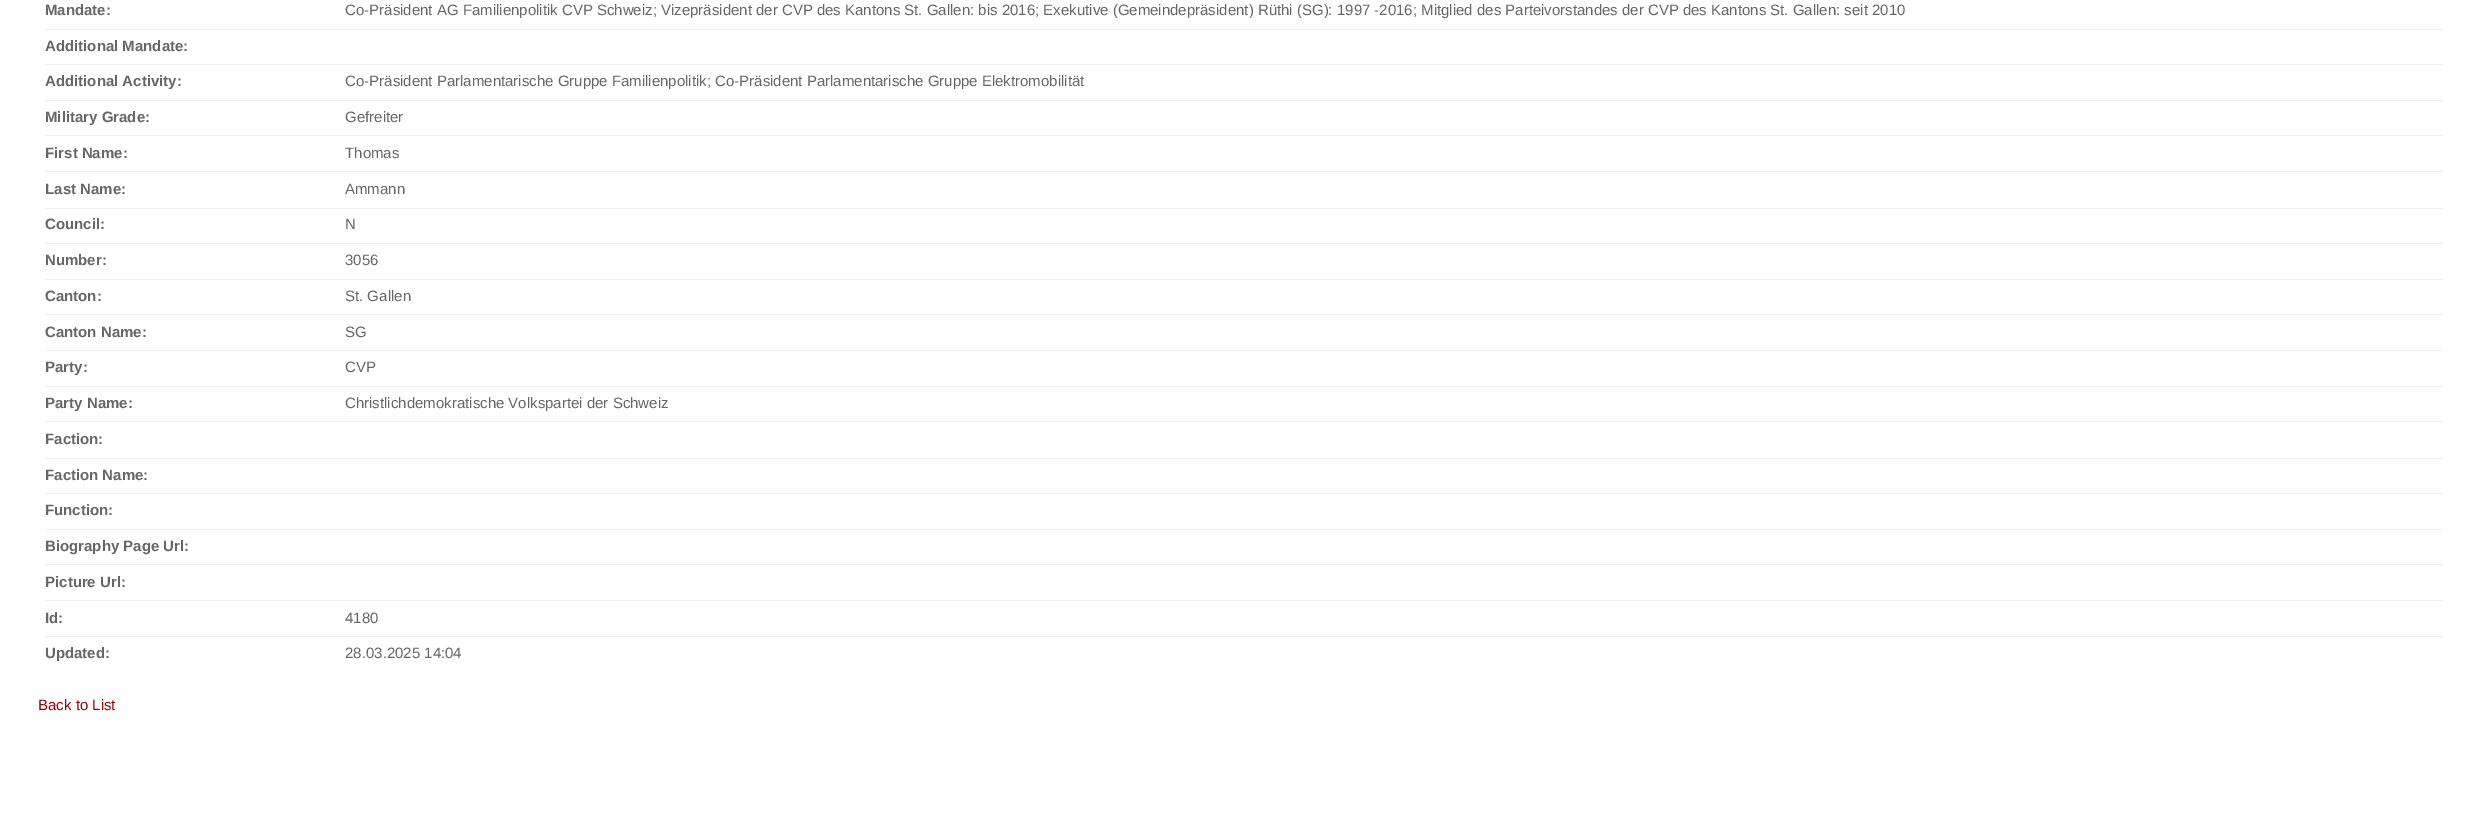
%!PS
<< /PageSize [2487 823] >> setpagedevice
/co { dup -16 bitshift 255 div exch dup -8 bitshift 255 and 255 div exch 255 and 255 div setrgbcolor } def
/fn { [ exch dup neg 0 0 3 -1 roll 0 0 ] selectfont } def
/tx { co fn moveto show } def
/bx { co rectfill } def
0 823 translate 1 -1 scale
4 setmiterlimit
0 0 2487 823 16#FFFFFF bx
45 29 2398 1 16#EFEFEF bx
45 64 2398 1 16#EFEFEF bx
45 100 2398 1 16#EFEFEF bx
45 135 2398 1 16#EFEFEF bx
45 171 2398 1 16#EFEFEF bx
45 208 2398 1 16#EFEFEF bx
45 243 2398 1 16#EFEFEF bx
45 279 2398 1 16#EFEFEF bx
45 314 2398 1 16#EFEFEF bx
45 350 2398 1 16#EFEFEF bx
45 386 2398 1 16#EFEFEF bx
45 421 2398 1 16#EFEFEF bx
45 458 2398 1 16#EFEFEF bx
45 493 2398 1 16#EFEFEF bx
45 529 2398 1 16#EFEFEF bx
45 564 2398 1 16#EFEFEF bx
45 600 2398 1 16#EFEFEF bx
45 636 2398 1 16#EFEFEF bx
(Mandate:) 45 15 /LiberationSans-Bold 15 16#666666 tx
(Co-Präsident AG Familienpolitik CVP Schweiz; Vizepräsident der CVP des Kantons St. Gallen: bis 2016; Exekutive \(Gemeindepräsident\) Rüthi \(SG\): 1997 -2016; Mitglied des Parteivorstandes der CVP des Kantons St. Gallen: seit 2010) 345 15 /LiberationSans-Regular 15 16#666666 tx
(Additional Mandate:) 45 51 /LiberationSans-Bold 15 16#666666 tx
(Additional Activity:) 45 86 /LiberationSans-Bold 15 16#666666 tx
(Co-Präsident Parlamentarische Gruppe Familienpolitik; Co-Präsident Parlamentarische Gruppe Elektromobilität) 345 86 /LiberationSans-Regular 15 16#666666 tx
(Military Grade:) 45 122 /LiberationSans-Bold 15 16#666666 tx
(Gefreiter) 345 122 /LiberationSans-Regular 15 16#666666 tx
(First Name:) 45 158 /LiberationSans-Bold 15 16#666666 tx
(Thomas) 345 158 /LiberationSans-Regular 15 16#666666 tx
(Last Name:) 45 194 /LiberationSans-Bold 15 16#666666 tx
(Ammann) 345 194 /LiberationSans-Regular 15 16#666666 tx
(Council:) 45 229 /LiberationSans-Bold 15 16#666666 tx
(N) 345 229 /LiberationSans-Regular 15 16#666666 tx
(Number:) 45 265 /LiberationSans-Bold 15 16#666666 tx
(3056) 345 265 /LiberationSans-Regular 15 16#666666 tx
(Canton:) 45 301 /LiberationSans-Bold 15 16#666666 tx
(St. Gallen) 345 301 /LiberationSans-Regular 15 16#666666 tx
(Canton Name:) 45 337 /LiberationSans-Bold 15 16#666666 tx
(SG) 345 337 /LiberationSans-Regular 15 16#666666 tx
(Party:) 45 372 /LiberationSans-Bold 15 16#666666 tx
(CVP) 345 372 /LiberationSans-Regular 15 16#666666 tx
(Party Name:) 45 408 /LiberationSans-Bold 15 16#666666 tx
(Christlichdemokratische Volkspartei der Schweiz) 345 408 /LiberationSans-Regular 15 16#666666 tx
(Faction:) 45 444 /LiberationSans-Bold 15 16#666666 tx
(Faction Name:) 45 480 /LiberationSans-Bold 15 16#666666 tx
(Function:) 45 515 /LiberationSans-Bold 15 16#666666 tx
(Biography Page Url:) 45 551 /LiberationSans-Bold 15 16#666666 tx
(Picture Url:) 45 587 /LiberationSans-Bold 15 16#666666 tx
(Id:) 45 623 /LiberationSans-Bold 15 16#666666 tx
(4180) 345 623 /LiberationSans-Regular 15 16#666666 tx
(Updated:) 45 658 /LiberationSans-Bold 15 16#666666 tx
(28.03.2025 14:04) 345 658 /LiberationSans-Regular 15 16#666666 tx
(Back to List) 38 710 /LiberationSans-Regular 15 16#8F0207 tx
showpage
